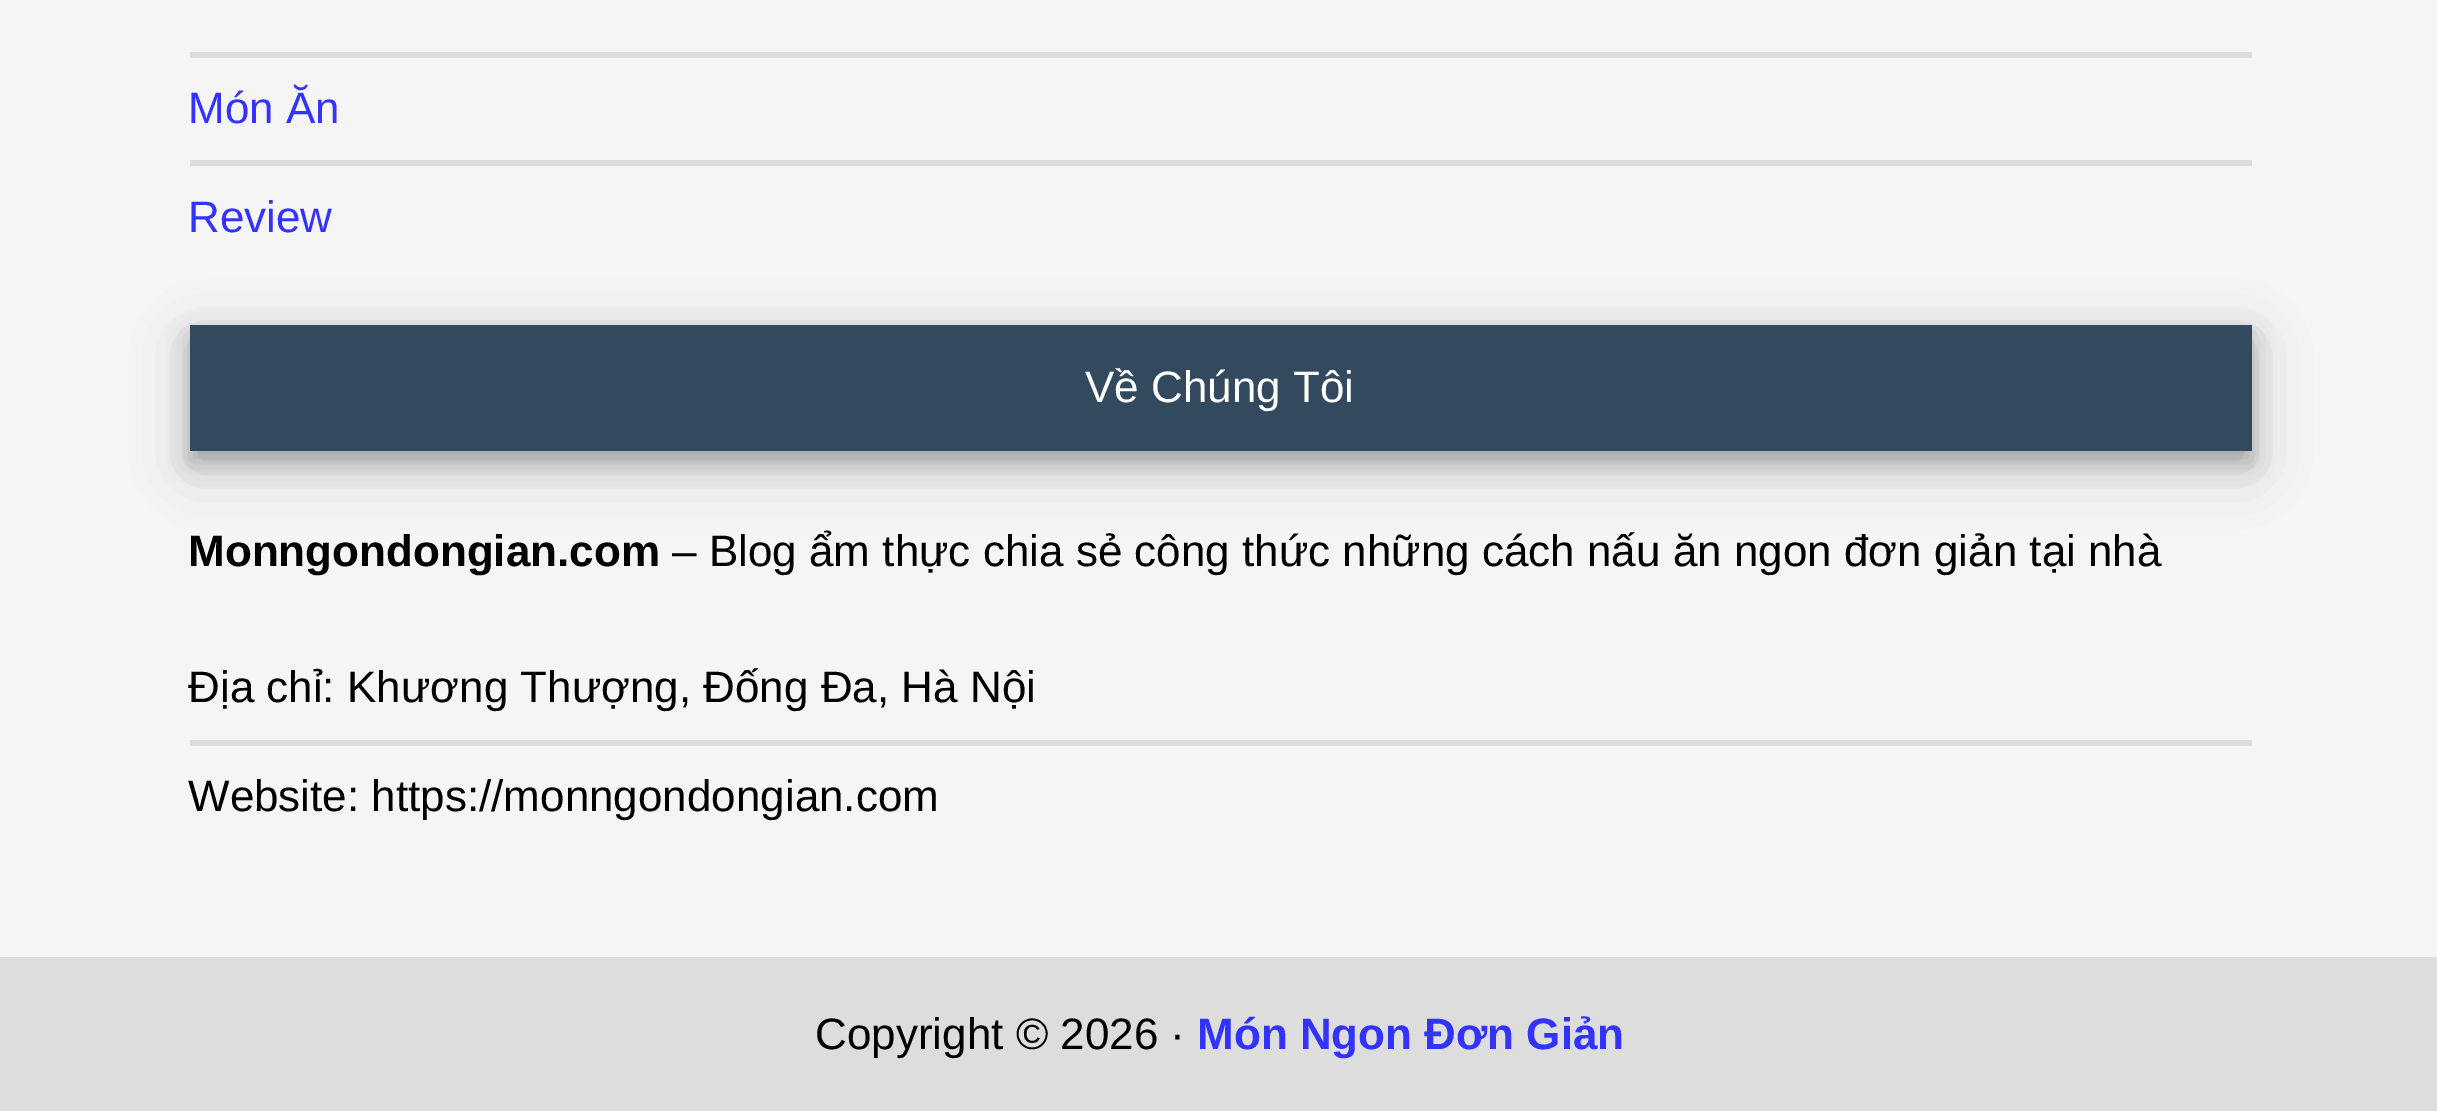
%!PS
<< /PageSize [2437 1111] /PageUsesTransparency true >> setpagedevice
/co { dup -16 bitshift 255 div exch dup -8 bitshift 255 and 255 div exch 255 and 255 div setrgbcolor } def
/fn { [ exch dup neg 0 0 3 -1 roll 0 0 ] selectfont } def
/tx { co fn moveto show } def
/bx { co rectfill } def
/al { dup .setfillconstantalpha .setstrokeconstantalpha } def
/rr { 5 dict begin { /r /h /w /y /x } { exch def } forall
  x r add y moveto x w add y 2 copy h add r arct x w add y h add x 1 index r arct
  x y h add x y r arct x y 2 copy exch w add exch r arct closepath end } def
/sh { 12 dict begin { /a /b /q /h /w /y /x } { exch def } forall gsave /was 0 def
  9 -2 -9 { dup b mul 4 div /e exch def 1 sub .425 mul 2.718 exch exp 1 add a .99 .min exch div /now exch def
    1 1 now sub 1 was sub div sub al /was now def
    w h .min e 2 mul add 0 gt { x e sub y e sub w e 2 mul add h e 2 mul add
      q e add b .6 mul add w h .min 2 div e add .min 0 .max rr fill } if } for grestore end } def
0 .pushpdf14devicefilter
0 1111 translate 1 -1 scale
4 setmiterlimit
0 0 2437 1111 16#F5F5F5 bx
190 52 2062 6 16#DDDDDD bx
190 160 2062 6 16#DDDDDD bx
16#000000 co
190 341 2062 127 0 27.5 .19 sh
190 336 2062 126 0 11 .2 sh
190 325 2062 126 16#33495D bx
190 740 2062 6 16#DDDDDD bx
0 957 2437 154 16#DDDDDD bx
(Món Ăn) 188 123 /LiberationSans-Regular 44 16#3333FF tx
(Review) 188 232 /LiberationSans-Regular 44 16#3333FF tx
(Về Chúng Tôi) 1085 402 /LiberationSans-Regular 44 16#FFFFFF tx
(Monngondongian.com) 188 566 /LiberationSans-Bold 44 16#000000 tx
(– Blog ẩm thực chia sẻ công thức những cách nấu ăn ngon đơn giản tại nhà) 672 566 /LiberationSans-Regular 44 16#000000 tx
(Địa chỉ: Khương Thượng, Đống Đa, Hà Nội) 188 702 /LiberationSans-Regular 44 16#000000 tx
(Website: https://monngondongian.com) 188 811 /LiberationSans-Regular 44 16#000000 tx
(Copyright © 2026 ·) 815 1049 /LiberationSans-Regular 44 16#000000 tx
(Món Ngon Đơn Giản) 1197 1049 /LiberationSans-Bold 44 16#3333FF tx
.poppdf14devicefilter showpage
